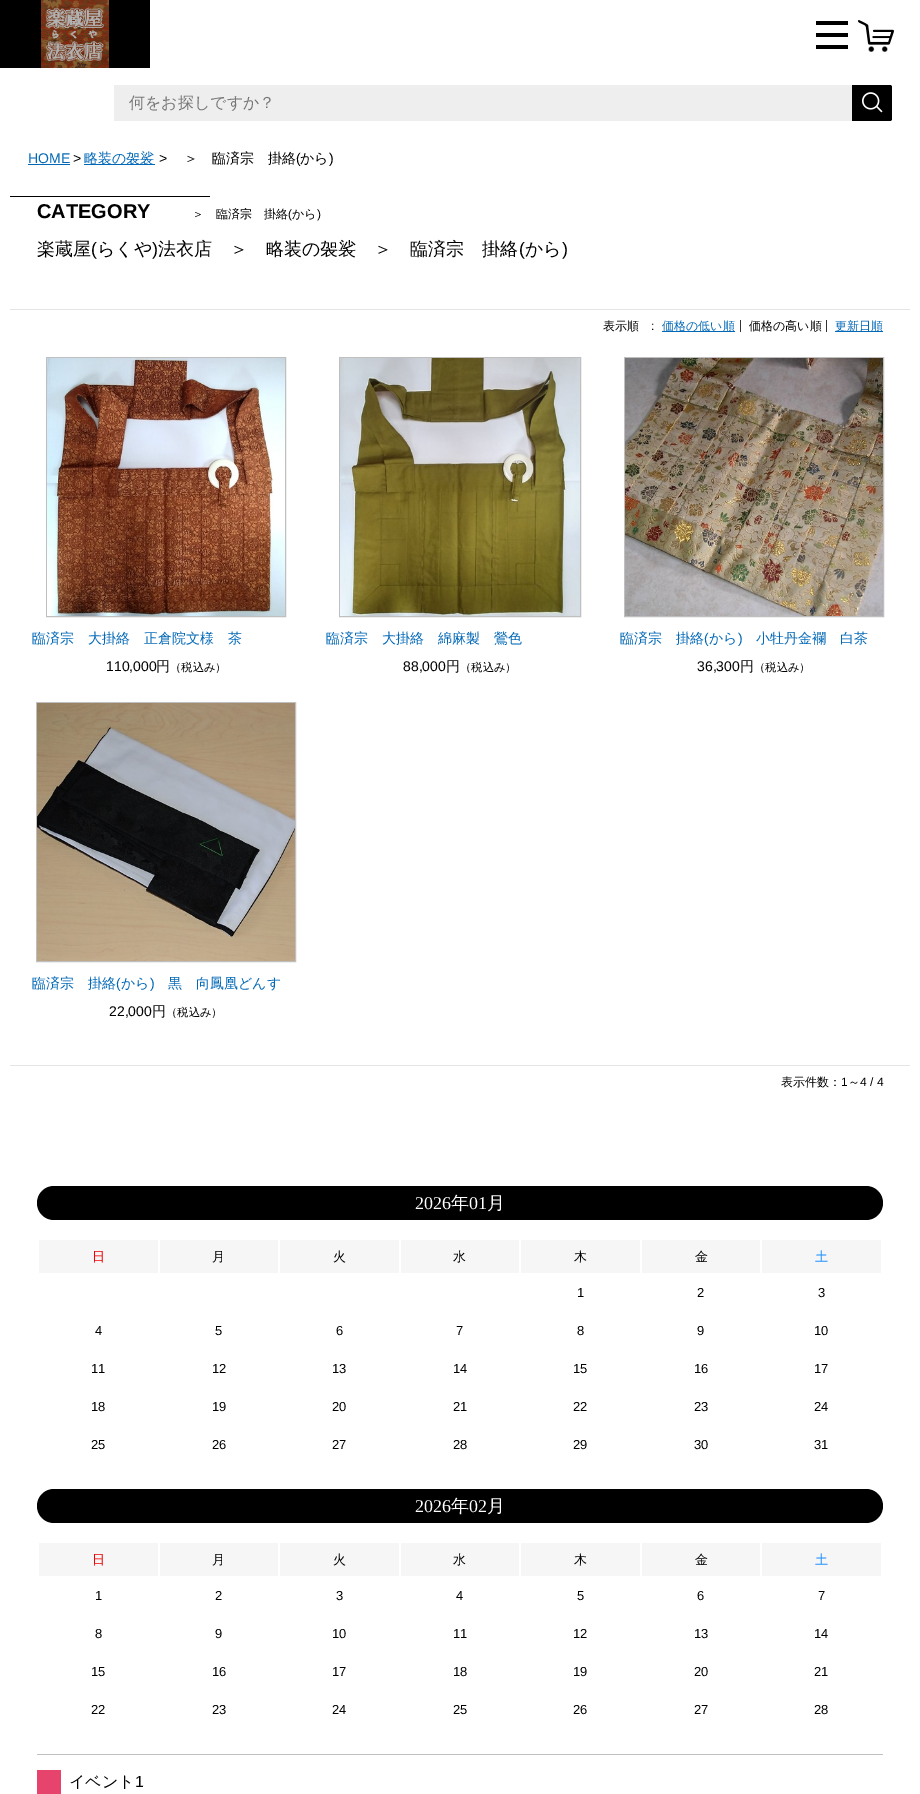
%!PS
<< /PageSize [920 1794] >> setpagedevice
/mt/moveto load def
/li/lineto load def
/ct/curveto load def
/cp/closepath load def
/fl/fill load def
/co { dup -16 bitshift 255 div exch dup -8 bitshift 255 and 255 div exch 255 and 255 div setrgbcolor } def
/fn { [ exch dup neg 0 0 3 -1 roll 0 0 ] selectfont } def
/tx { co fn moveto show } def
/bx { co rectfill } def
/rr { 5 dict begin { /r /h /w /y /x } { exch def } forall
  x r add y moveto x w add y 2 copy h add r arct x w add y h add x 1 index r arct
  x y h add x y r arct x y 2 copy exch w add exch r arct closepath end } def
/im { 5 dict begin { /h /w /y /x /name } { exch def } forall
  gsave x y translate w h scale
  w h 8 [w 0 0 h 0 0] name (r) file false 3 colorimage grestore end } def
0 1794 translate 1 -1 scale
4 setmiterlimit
0 0 920 1794 16#FFFFFF bx
0 0 150 68 16#000000 bx
(media/1.raw) 41 0 68 68 im
816 33 32 4 16#000000 bx
816 21 32 4 16#000000 bx
816 45 32 4 16#000000 bx
(media/2.raw) 858 20 36 32 im
114 85 738 36 16#EEEEEE bx
16#000000 co
852 85 mt 890 85 li 891 85 892 86 892 87 ct 892 119 li 892 120 891 121 890 121 ct 852 121 li cp fl
(media/3.raw) 862 92 21 21 im
28 164 42 1 16#0068B7 bx
84 164 71 1 16#0068B7 bx
10 196 200 1 16#000000 bx
10 309 900 1 16#E5E5E5 bx
740 320 1 12 16#333333 bx
662 331 73 1 16#0068B7 bx
826 320 1 12 16#333333 bx
835 331 48 1 16#0068B7 bx
16#BFBFBF co
46.5 357.5 239 259 rectstroke
(media/4.raw) 47 358 238 258 im
339.5 357.5 241 259 rectstroke
(media/5.raw) 340 358 240 258 im
624.5 357.5 259 259 rectstroke
(media/6.raw) 625 358 258 258 im
36.5 702.5 259 259 rectstroke
(media/7.raw) 37 703 258 258 im
10 1065 900 1 16#E5E5E5 bx
16#000000 co
37 1186 846 34 17 rr fl
39 1240 119 33 16#F6F6F7 bx
160 1240 118 33 16#F6F6F7 bx
280 1240 119 33 16#F6F6F7 bx
401 1240 118 33 16#F6F6F7 bx
521 1240 119 33 16#F6F6F7 bx
642 1240 118 33 16#F6F6F7 bx
762 1240 119 33 16#F6F6F7 bx
16#000000 co
37 1489 846 34 17 rr fl
39 1543 119 33 16#F6F6F7 bx
160 1543 118 33 16#F6F6F7 bx
280 1543 119 33 16#F6F6F7 bx
401 1543 118 33 16#F6F6F7 bx
521 1543 119 33 16#F6F6F7 bx
642 1543 118 33 16#F6F6F7 bx
762 1543 119 33 16#F6F6F7 bx
37 1754 846 1 16#BFBFBF bx
37 1770 24 24 16#E6436D bx
(何をお探しですか？) 129 108 /WenQuanYiZenHei-Medium 16 16#757575 tx
(HOME) 28 163 /LiberationSans-Regular 14 16#0068B7 tx
(>) 73 163 /LiberationSans-Regular 14 16#000000 tx
(略装の袈裟) 84 163 /WenQuanYiZenHei-Medium 14 16#0068B7 tx
(>) 159 163 /LiberationSans-Regular 14 16#000000 tx
(＞　臨済宗　掛絡) 184 163 /WenQuanYiZenHei-Medium 14 16#000000 tx
(\() 296 163 /LiberationSans-Regular 14 16#000000 tx
(から) 300 163 /WenQuanYiZenHei-Medium 14 16#000000 tx
(\)) 329 163 /LiberationSans-Regular 14 16#000000 tx
(CATEGORY) 37 218 /LiberationSans-Bold 20 16#000000 tx
(＞　臨済宗　掛絡) 192 218 /WenQuanYiZenHei-Medium 12 16#000000 tx
(\() 288 218 /LiberationSans-Regular 12 16#000000 tx
(から) 292 218 /WenQuanYiZenHei-Medium 12 16#000000 tx
(\)) 317 218 /LiberationSans-Regular 12 16#000000 tx
(楽蔵屋) 37 255 /WenQuanYiZenHei-Medium 18 16#000000 tx
(\() 91 255 /LiberationSans-Regular 18 16#000000 tx
(らくや) 97 255 /WenQuanYiZenHei-Medium 18 16#000000 tx
(\)) 152 255 /LiberationSans-Regular 18 16#000000 tx
(法衣店　＞　略装の袈裟　＞　臨済宗　掛絡) 158 255 /WenQuanYiZenHei-Medium 18 16#000000 tx
(\() 519 255 /LiberationSans-Regular 18 16#000000 tx
(から) 525 255 /WenQuanYiZenHei-Medium 18 16#000000 tx
(\)) 562 255 /LiberationSans-Regular 18 16#000000 tx
(表示順) 603 330 /WenQuanYiZenHei-Medium 12 16#000000 tx
(:) 651 330 /LiberationSans-Regular 12 16#000000 tx
(価格の低い順) 662 330 /WenQuanYiZenHei-Medium 12 16#0068B7 tx
(価格の高い順) 749 330 /WenQuanYiZenHei-Medium 12 16#000000 tx
(更新日順) 835 330 /WenQuanYiZenHei-Medium 12 16#0068B7 tx
(臨済宗　大掛絡　正倉院文様　茶) 32 643 /WenQuanYiZenHei-Medium 14 16#0068B7 tx
(110,000) 106 671 /LiberationSans-Regular 14 16#000000 tx
(円) 156 671 /WenQuanYiZenHei-Medium 14 16#000000 tx
(（税込み）) 170 671 /WenQuanYiZenHei-Medium 11.25 16#000000 tx
(臨済宗　大掛絡　綿麻製　鶯色) 326 643 /WenQuanYiZenHei-Medium 14 16#0068B7 tx
(88,000) 403 671 /LiberationSans-Regular 14 16#000000 tx
(円) 446 671 /WenQuanYiZenHei-Medium 14 16#000000 tx
(（税込み）) 460 671 /WenQuanYiZenHei-Medium 11.25 16#000000 tx
(臨済宗　掛絡) 620 643 /WenQuanYiZenHei-Medium 14 16#0068B7 tx
(\() 704 643 /LiberationSans-Regular 14 16#0068B7 tx
(から) 709 643 /WenQuanYiZenHei-Medium 14 16#0068B7 tx
(\)) 738 643 /LiberationSans-Regular 14 16#0068B7 tx
(小牡丹金襴　白茶) 756 643 /WenQuanYiZenHei-Medium 14 16#0068B7 tx
(36,300) 697 671 /LiberationSans-Regular 14 16#000000 tx
(円) 740 671 /WenQuanYiZenHei-Medium 14 16#000000 tx
(（税込み）) 754 671 /WenQuanYiZenHei-Medium 11.25 16#000000 tx
(臨済宗　掛絡) 32 988 /WenQuanYiZenHei-Medium 14 16#0068B7 tx
(\() 116 988 /LiberationSans-Regular 14 16#0068B7 tx
(から) 121 988 /WenQuanYiZenHei-Medium 14 16#0068B7 tx
(\)) 150 988 /LiberationSans-Regular 14 16#0068B7 tx
(黒　向鳳凰どんす) 168 988 /WenQuanYiZenHei-Medium 14 16#0068B7 tx
(22,000) 109 1016 /LiberationSans-Regular 14 16#000000 tx
(円) 152 1016 /WenQuanYiZenHei-Medium 14 16#000000 tx
(（税込み）) 166 1016 /WenQuanYiZenHei-Medium 11.25 16#000000 tx
(表示件数：) 781 1086 /WenQuanYiZenHei-Medium 12 16#000000 tx
(1) 841 1086 /LiberationSans-Regular 12 16#000000 tx
(～) 848 1086 /WenQuanYiZenHei-Medium 12 16#000000 tx
(4 / 4) 860 1086 /LiberationSans-Regular 12 16#000000 tx
(2026) 415 1209 /LiberationSerif-Regular 18 16#FFFFFF tx
(年) 451 1209 /WenQuanYiZenHei-Medium 18 16#FFFFFF tx
(01) 469 1209 /LiberationSerif-Regular 18 16#FFFFFF tx
(月) 487 1209 /WenQuanYiZenHei-Medium 18 16#FFFFFF tx
(日) 92 1261 /WenQuanYiZenHei-Medium 13 16#EC0000 tx
(月) 212 1261 /WenQuanYiZenHei-Medium 13 16#000000 tx
(火) 333 1261 /WenQuanYiZenHei-Medium 13 16#000000 tx
(水) 453 1261 /WenQuanYiZenHei-Medium 13 16#000000 tx
(木) 574 1261 /WenQuanYiZenHei-Medium 13 16#000000 tx
(金) 695 1261 /WenQuanYiZenHei-Medium 13 16#000000 tx
(土) 815 1261 /WenQuanYiZenHei-Medium 13 16#1E90FF tx
(1) 577 1297 /LiberationSans-Regular 13 16#000000 tx
(2) 697 1297 /LiberationSans-Regular 13 16#000000 tx
(3) 818 1297 /LiberationSans-Regular 13 16#000000 tx
(4) 95 1335 /LiberationSans-Regular 13 16#000000 tx
(5) 215 1335 /LiberationSans-Regular 13 16#000000 tx
(6) 336 1335 /LiberationSans-Regular 13 16#000000 tx
(7) 456 1335 /LiberationSans-Regular 13 16#000000 tx
(8) 577 1335 /LiberationSans-Regular 13 16#000000 tx
(9) 697 1335 /LiberationSans-Regular 13 16#000000 tx
(10) 814 1335 /LiberationSans-Regular 13 16#000000 tx
(11) 91 1373 /LiberationSans-Regular 13 16#000000 tx
(12) 212 1373 /LiberationSans-Regular 13 16#000000 tx
(13) 332 1373 /LiberationSans-Regular 13 16#000000 tx
(14) 453 1373 /LiberationSans-Regular 13 16#000000 tx
(15) 573 1373 /LiberationSans-Regular 13 16#000000 tx
(16) 694 1373 /LiberationSans-Regular 13 16#000000 tx
(17) 814 1373 /LiberationSans-Regular 13 16#000000 tx
(18) 91 1411 /LiberationSans-Regular 13 16#000000 tx
(19) 212 1411 /LiberationSans-Regular 13 16#000000 tx
(20) 332 1411 /LiberationSans-Regular 13 16#000000 tx
(21) 453 1411 /LiberationSans-Regular 13 16#000000 tx
(22) 573 1411 /LiberationSans-Regular 13 16#000000 tx
(23) 694 1411 /LiberationSans-Regular 13 16#000000 tx
(24) 814 1411 /LiberationSans-Regular 13 16#000000 tx
(25) 91 1449 /LiberationSans-Regular 13 16#000000 tx
(26) 212 1449 /LiberationSans-Regular 13 16#000000 tx
(27) 332 1449 /LiberationSans-Regular 13 16#000000 tx
(28) 453 1449 /LiberationSans-Regular 13 16#000000 tx
(29) 573 1449 /LiberationSans-Regular 13 16#000000 tx
(30) 694 1449 /LiberationSans-Regular 13 16#000000 tx
(31) 814 1449 /LiberationSans-Regular 13 16#000000 tx
(2026) 415 1512 /LiberationSerif-Regular 18 16#FFFFFF tx
(年) 451 1512 /WenQuanYiZenHei-Medium 18 16#FFFFFF tx
(02) 469 1512 /LiberationSerif-Regular 18 16#FFFFFF tx
(月) 487 1512 /WenQuanYiZenHei-Medium 18 16#FFFFFF tx
(日) 92 1564 /WenQuanYiZenHei-Medium 13 16#EC0000 tx
(月) 212 1564 /WenQuanYiZenHei-Medium 13 16#000000 tx
(火) 333 1564 /WenQuanYiZenHei-Medium 13 16#000000 tx
(水) 453 1564 /WenQuanYiZenHei-Medium 13 16#000000 tx
(木) 574 1564 /WenQuanYiZenHei-Medium 13 16#000000 tx
(金) 695 1564 /WenQuanYiZenHei-Medium 13 16#000000 tx
(土) 815 1564 /WenQuanYiZenHei-Medium 13 16#1E90FF tx
(1) 95 1600 /LiberationSans-Regular 13 16#000000 tx
(2) 215 1600 /LiberationSans-Regular 13 16#000000 tx
(3) 336 1600 /LiberationSans-Regular 13 16#000000 tx
(4) 456 1600 /LiberationSans-Regular 13 16#000000 tx
(5) 577 1600 /LiberationSans-Regular 13 16#000000 tx
(6) 697 1600 /LiberationSans-Regular 13 16#000000 tx
(7) 818 1600 /LiberationSans-Regular 13 16#000000 tx
(8) 95 1638 /LiberationSans-Regular 13 16#000000 tx
(9) 215 1638 /LiberationSans-Regular 13 16#000000 tx
(10) 332 1638 /LiberationSans-Regular 13 16#000000 tx
(11) 453 1638 /LiberationSans-Regular 13 16#000000 tx
(12) 573 1638 /LiberationSans-Regular 13 16#000000 tx
(13) 694 1638 /LiberationSans-Regular 13 16#000000 tx
(14) 814 1638 /LiberationSans-Regular 13 16#000000 tx
(15) 91 1676 /LiberationSans-Regular 13 16#000000 tx
(16) 212 1676 /LiberationSans-Regular 13 16#000000 tx
(17) 332 1676 /LiberationSans-Regular 13 16#000000 tx
(18) 453 1676 /LiberationSans-Regular 13 16#000000 tx
(19) 573 1676 /LiberationSans-Regular 13 16#000000 tx
(20) 694 1676 /LiberationSans-Regular 13 16#000000 tx
(21) 814 1676 /LiberationSans-Regular 13 16#000000 tx
(22) 91 1714 /LiberationSans-Regular 13 16#000000 tx
(23) 212 1714 /LiberationSans-Regular 13 16#000000 tx
(24) 332 1714 /LiberationSans-Regular 13 16#000000 tx
(25) 453 1714 /LiberationSans-Regular 13 16#000000 tx
(26) 573 1714 /LiberationSans-Regular 13 16#000000 tx
(27) 694 1714 /LiberationSans-Regular 13 16#000000 tx
(28) 814 1714 /LiberationSans-Regular 13 16#000000 tx
(イベント) 69 1787 /WenQuanYiZenHei-Medium 16 16#000000 tx
(1) 135 1787 /LiberationSans-Regular 16 16#000000 tx
showpage
